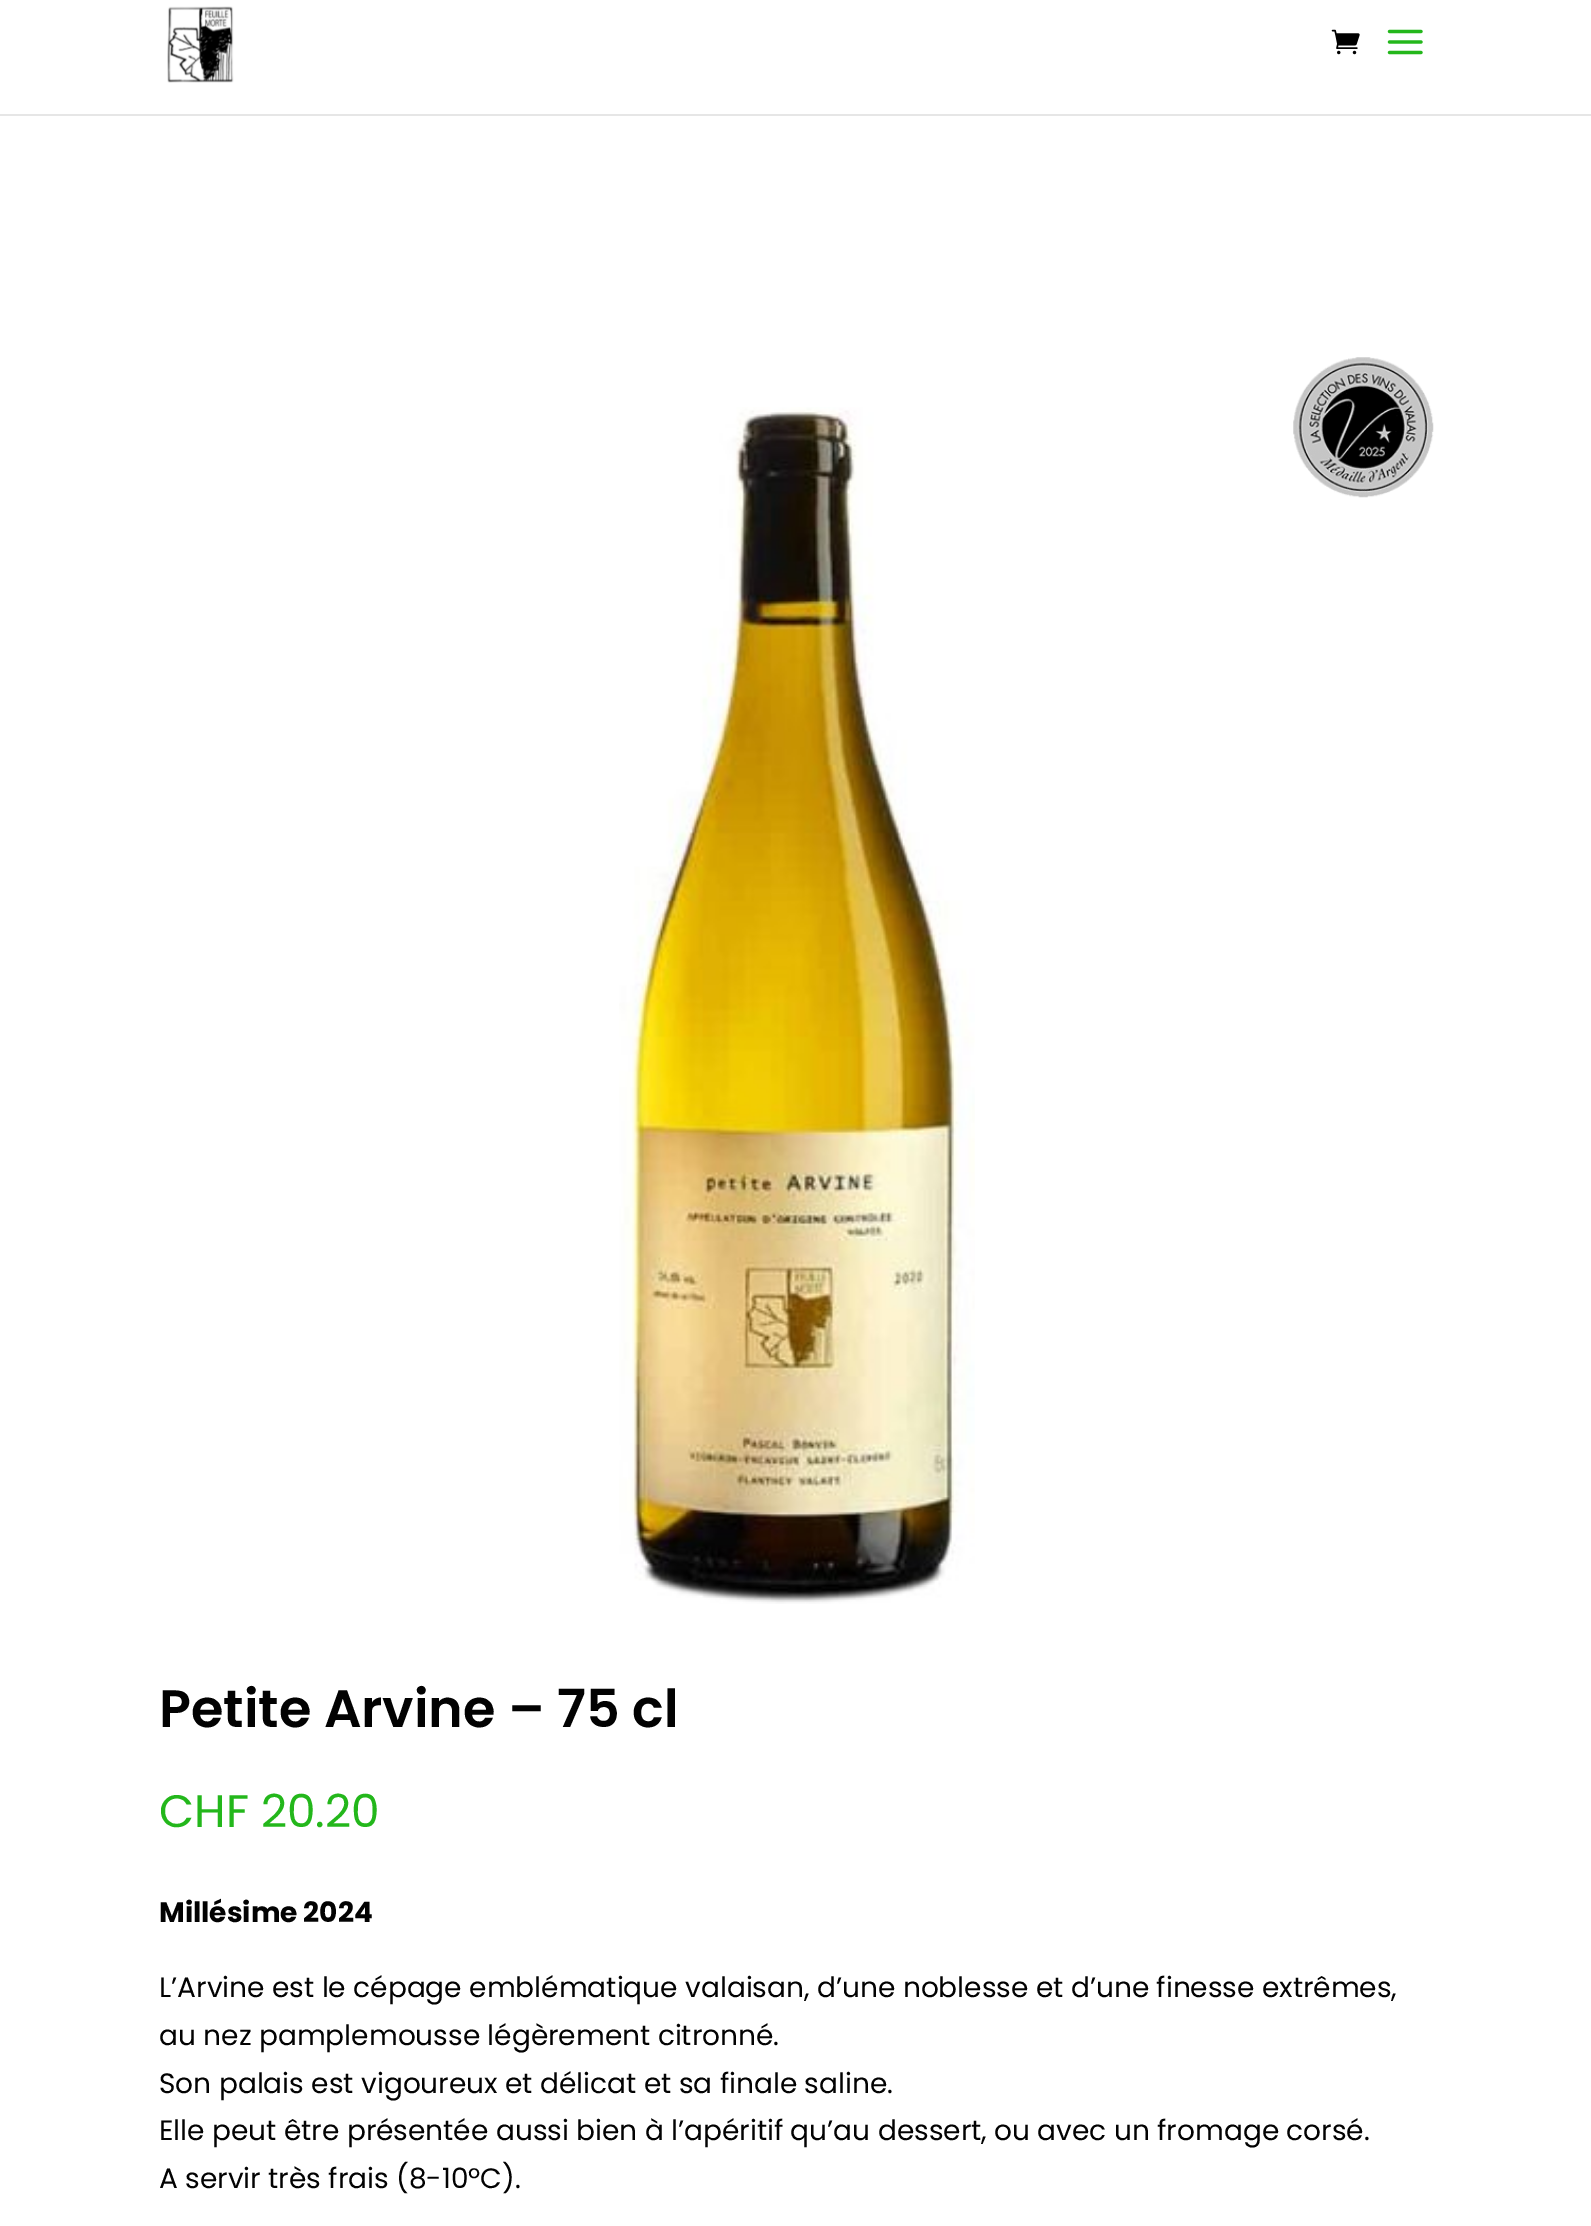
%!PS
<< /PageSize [1591 2226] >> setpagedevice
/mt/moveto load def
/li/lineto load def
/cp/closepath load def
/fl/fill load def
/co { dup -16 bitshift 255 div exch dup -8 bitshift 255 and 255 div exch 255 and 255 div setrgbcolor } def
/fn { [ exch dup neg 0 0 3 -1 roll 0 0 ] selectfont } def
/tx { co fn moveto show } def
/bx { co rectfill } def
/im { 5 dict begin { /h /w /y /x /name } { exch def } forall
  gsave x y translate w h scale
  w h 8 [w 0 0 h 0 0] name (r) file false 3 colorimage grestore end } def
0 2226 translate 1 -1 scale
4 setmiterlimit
0 0 1591 2226 16#FFFFFF bx
16#E6E6E6 co
0 114 mt 0 116 li 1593 116 li 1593 -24 li 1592 -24 li 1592 114 li cp fl
(media/1.raw) 167 6 67 77 im
(media/2.raw) 1331 29 29 26 im
(media/3.raw) 1387 29 36 26 im
(media/4.raw) 619 407 356 1197 im
(media/5.raw) 1293 357 141 141 im
(Petite Arvine – 75 cl) 159 1727 /Poppins-SemiBold 52.5 16#020202 tx
(CHF 20.20) 159 1827 /Poppins-Regular 45.5 16#23B71B tx
(Millésime 2024) 159 1922 /Poppins-Bold 28 16#020202 tx
(L’Arvine est le cépage emblématique valaisan, d’une noblesse et d’une finesse extrêmes,) 159 1997 /Poppins-Regular 28 16#020202 tx
(au nez pamplemousse légèrement citronné.) 159 2045 /Poppins-Regular 28 16#020202 tx
(Son palais est vigoureux et délicat et sa finale saline.) 159 2093 /Poppins-Regular 28 16#020202 tx
(Elle peut être présentée aussi bien à l’apéritif qu’au dessert, ou avec un fromage corsé.) 159 2140 /Poppins-Regular 28 16#020202 tx
(A servir très frais \(8-10ºC\).) 159 2188 /Poppins-Regular 28 16#020202 tx
showpage
